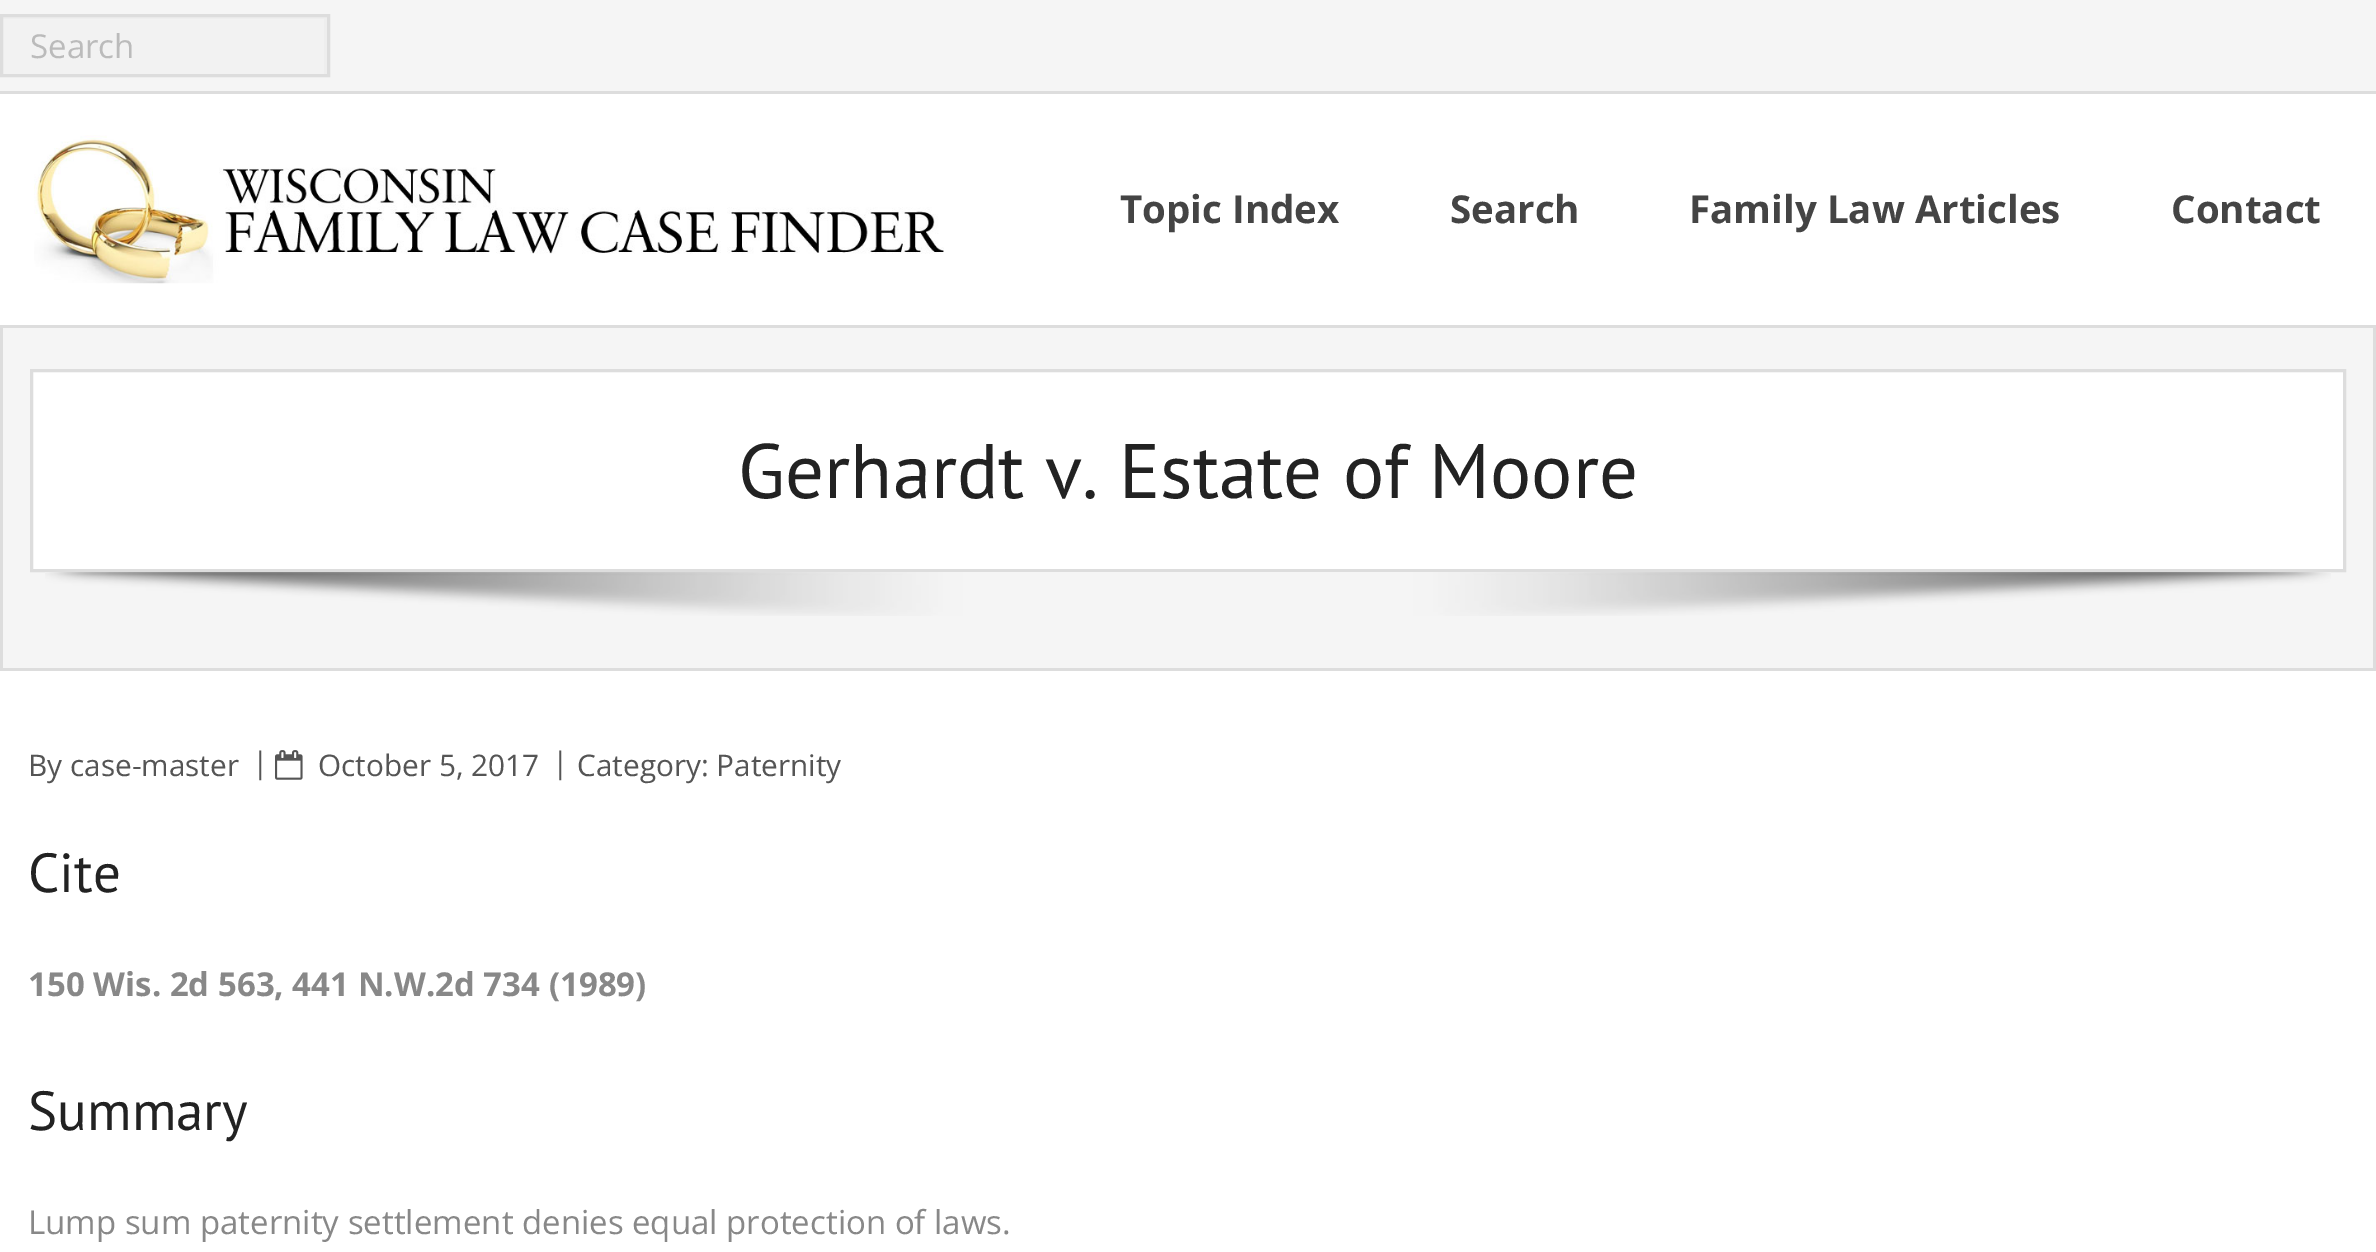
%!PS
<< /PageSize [2376 1252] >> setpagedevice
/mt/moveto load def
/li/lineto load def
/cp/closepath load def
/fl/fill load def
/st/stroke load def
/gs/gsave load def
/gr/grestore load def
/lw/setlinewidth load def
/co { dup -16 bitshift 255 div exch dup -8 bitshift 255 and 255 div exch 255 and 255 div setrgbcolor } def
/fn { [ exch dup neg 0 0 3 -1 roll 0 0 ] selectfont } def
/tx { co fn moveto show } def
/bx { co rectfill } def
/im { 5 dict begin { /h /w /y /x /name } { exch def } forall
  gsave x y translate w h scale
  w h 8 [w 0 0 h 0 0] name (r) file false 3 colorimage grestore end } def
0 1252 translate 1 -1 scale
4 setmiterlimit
0 0 2376 1252 16#FFFFFF bx
2373 327 3 344 16#DDDDDD bx
0 668 2376 3 16#DDDDDD bx
0 327 3 344 16#DDDDDD bx
0 325 2376 3 16#DDDDDD bx
0 0 2376 91 16#F5F5F5 bx
0 91 2376 3 16#DDDDDD bx
3 19 321 55 16#F2F2F2 bx
gs
3 17 324 57 rectclip
16#EEEEEE co
-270 -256 mt 600 -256 li 600 346 li -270 346 li cp 0 19 mt 324 19 li 324 77 li 0 77 li cp eofill
gr
16#DDDDDD co
3 lw
1.5 15.5 327 60 rectstroke
(media/1.raw) 34 135 910 149 im
3 328 2370 340 16#F5F5F5 bx
16#FFFFFF co
31.5 370.5 mt 2344.5 370.5 li 2344.5 570.5 li 31.5 570.5 li cp gs fl gr
16#DDDDDD co
st
(media/2.raw) 45 572 2286 44 im
(media/3.raw) 275 750 28 30 im
(Search) 30 58 /OpenSans-Regular 33 16#BBBBBB tx
(Topic Index) 1120 223 /OpenSans-Bold 38.5 16#444444 tx
(Search) 1450 223 /OpenSans-Bold 38.5 16#444444 tx
(Family Law Articles) 1689 223 /OpenSans-Bold 38.5 16#444444 tx
(Contact) 2171 223 /OpenSans-Bold 38.5 16#444444 tx
(Gerhardt v. Estate of Moore) 738 498 /PTSans-Regular 77 16#222222 tx
(By case-master) 28 776 /OpenSans-Regular 29.75 16#555555 tx
(|) 252 773 /OpenSans-Regular 29.75 16#555555 tx
(October 5, 2017) 318 776 /OpenSans-Regular 29.75 16#555555 tx
(|) 552 773 /OpenSans-Regular 29.75 16#555555 tx
(Category: Paternity) 577 776 /OpenSans-Regular 29.75 16#555555 tx
(Cite) 28 892 /PTSans-Regular 55 16#222222 tx
(150 Wis. 2d 563, 441 N.W.2d 734 \(1989\)) 28 996 /OpenSans-Bold 33 16#888888 tx
(Summary) 28 1130 /PTSans-Regular 55 16#222222 tx
(Lump sum paternity settlement denies equal protection of laws.) 28 1234 /OpenSans-Regular 33 16#888888 tx
showpage
